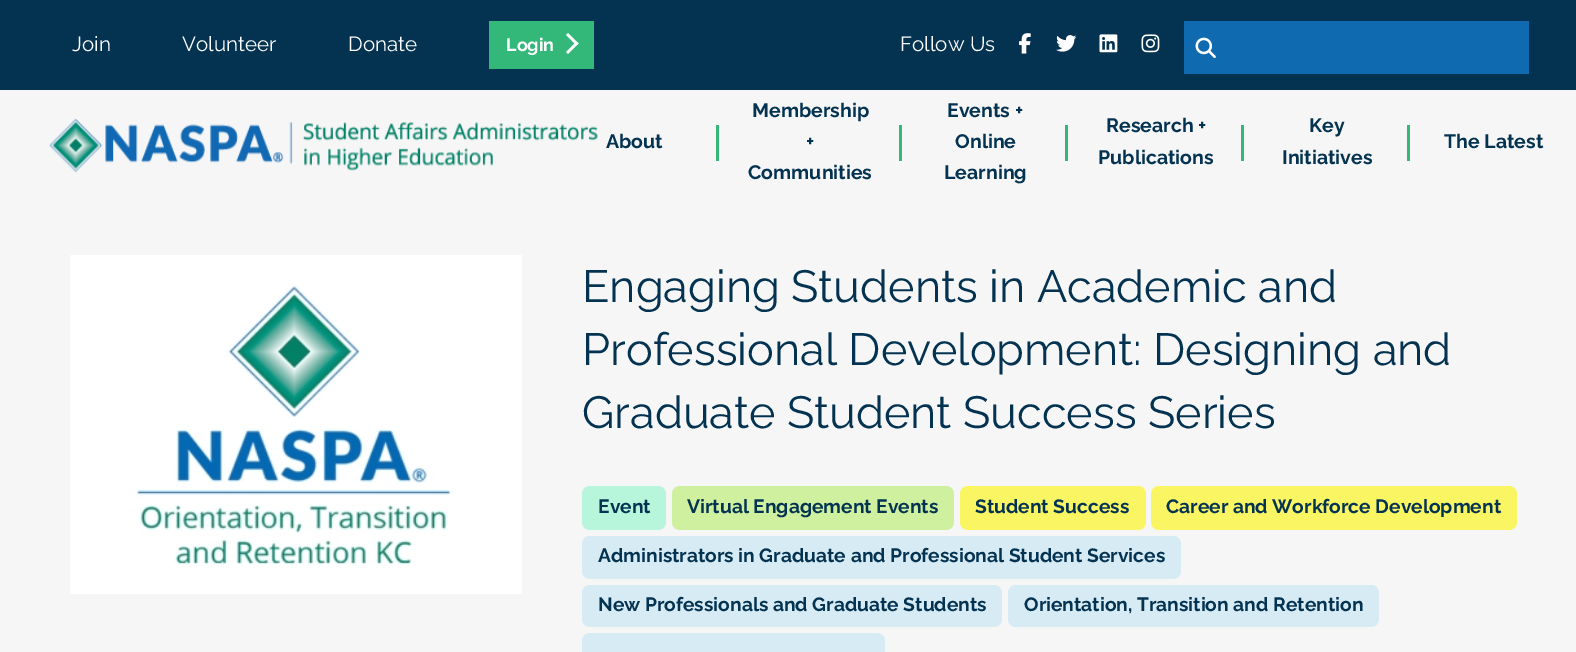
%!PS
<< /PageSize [1576 652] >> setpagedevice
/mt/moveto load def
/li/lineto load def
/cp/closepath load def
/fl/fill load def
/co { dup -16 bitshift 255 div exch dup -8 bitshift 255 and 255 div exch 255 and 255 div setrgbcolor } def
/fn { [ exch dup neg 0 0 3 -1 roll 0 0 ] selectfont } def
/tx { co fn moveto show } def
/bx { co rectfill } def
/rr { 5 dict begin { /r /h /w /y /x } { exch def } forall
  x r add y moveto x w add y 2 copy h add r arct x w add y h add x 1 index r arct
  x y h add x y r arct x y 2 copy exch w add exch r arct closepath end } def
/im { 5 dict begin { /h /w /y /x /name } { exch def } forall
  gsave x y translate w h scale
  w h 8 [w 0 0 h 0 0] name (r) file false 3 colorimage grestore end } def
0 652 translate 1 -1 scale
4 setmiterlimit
0 0 1576 652 16#F6F6F6 bx
0 0 1576 90 16#043352 bx
489 21 105 48 16#34B879 bx
16#FFFFFF co
566 35 mt 568 33 li 578.5 43.5 li 576.5 45.5 li cp fl
566 52 mt 576.5 41.5 li 578.5 43.5 li 568 54 li cp fl
(media/1.raw) 1019 33 12 21 im
(media/2.raw) 1056 35 21 17 im
(media/3.raw) 1099 34 19 19 im
(media/4.raw) 1141 34 19 19 im
1184 21 345 53 16#0F6AB0 bx
(media/5.raw) 1195 37 21 21 im
(media/6.raw) 49 119 549 54 im
716 125 3 36 16#34B879 bx
899 125 3 36 16#34B879 bx
1065 125 3 36 16#34B879 bx
1241 125 3 36 16#34B879 bx
1407 125 3 36 16#34B879 bx
(media/7.raw) 70 255 452 339 im
16#B8F6DC co
582 486 84 44 8 rr fl
16#CFF09E co
672 486 282 44 8 rr fl
16#FAF562 co
960 486 186 44 8 rr fl
1151 486 366 44 8 rr fl
16#D6EBF4 co
582 536 599 43 8 rr fl
582 585 420 42 8 rr fl
1008 585 371 42 8 rr fl
582 633 303 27 8 rr fl
(Join) 72 51 /Raleway-Regular 20.5 16#FFFFFF tx
(Volunteer) 182 51 /Raleway-Regular 20.5 16#FFFFFF tx
(Donate) 348 51 /Raleway-Regular 20.5 16#FFFFFF tx
(Login) 506 51 /Raleway-Bold 18 16#FFFFFF tx
(Follow Us) 900 51 /Raleway-Regular 20.5 16#FFFFFF tx
(About) 606 148 /Raleway-Bold 19.5 16#043352 tx
(Membership) 752 117 /Raleway-Bold 19.5 16#043352 tx
(+) 806 148 /Raleway-Bold 19.5 16#043352 tx
(Communities) 748 179 /Raleway-Bold 19.5 16#043352 tx
(Events +) 947 117 /Raleway-Bold 19.5 16#043352 tx
(Online) 955 148 /Raleway-Bold 19.5 16#043352 tx
(Learning) 944 179 /Raleway-Bold 19.5 16#043352 tx
(Research +) 1106 132 /Raleway-Bold 19.5 16#043352 tx
(Publications) 1098 164 /Raleway-Bold 19.5 16#043352 tx
(Key) 1309 132 /Raleway-Bold 19.5 16#043352 tx
(Initiatives) 1282 164 /Raleway-Bold 19.5 16#043352 tx
(The Latest) 1444 148 /Raleway-Bold 19.5 16#043352 tx
(Engaging Students in Academic and) 582 302 /Raleway-Regular 45 16#043352 tx
(Professional Development: Designing and) 582 365 /Raleway-Regular 45 16#043352 tx
(Graduate Student Success Series) 582 428 /Raleway-Regular 45 16#043352 tx
(Event) 598 513 /Raleway-Bold 19.2 16#043352 tx
(Virtual Engagement Events) 687 513 /Raleway-Bold 19.2 16#043352 tx
(Student Success) 975 513 /Raleway-Bold 19.2 16#043352 tx
(Career and Workforce Development) 1166 513 /Raleway-Bold 19.2 16#043352 tx
(Administrators in Graduate and Professional Student Services) 598 562 /Raleway-Bold 19.2 16#043352 tx
(New Professionals and Graduate Students) 598 611 /Raleway-Bold 19.2 16#043352 tx
(Orientation, Transition and Retention) 1024 611 /Raleway-Bold 19.2 16#043352 tx
showpage
